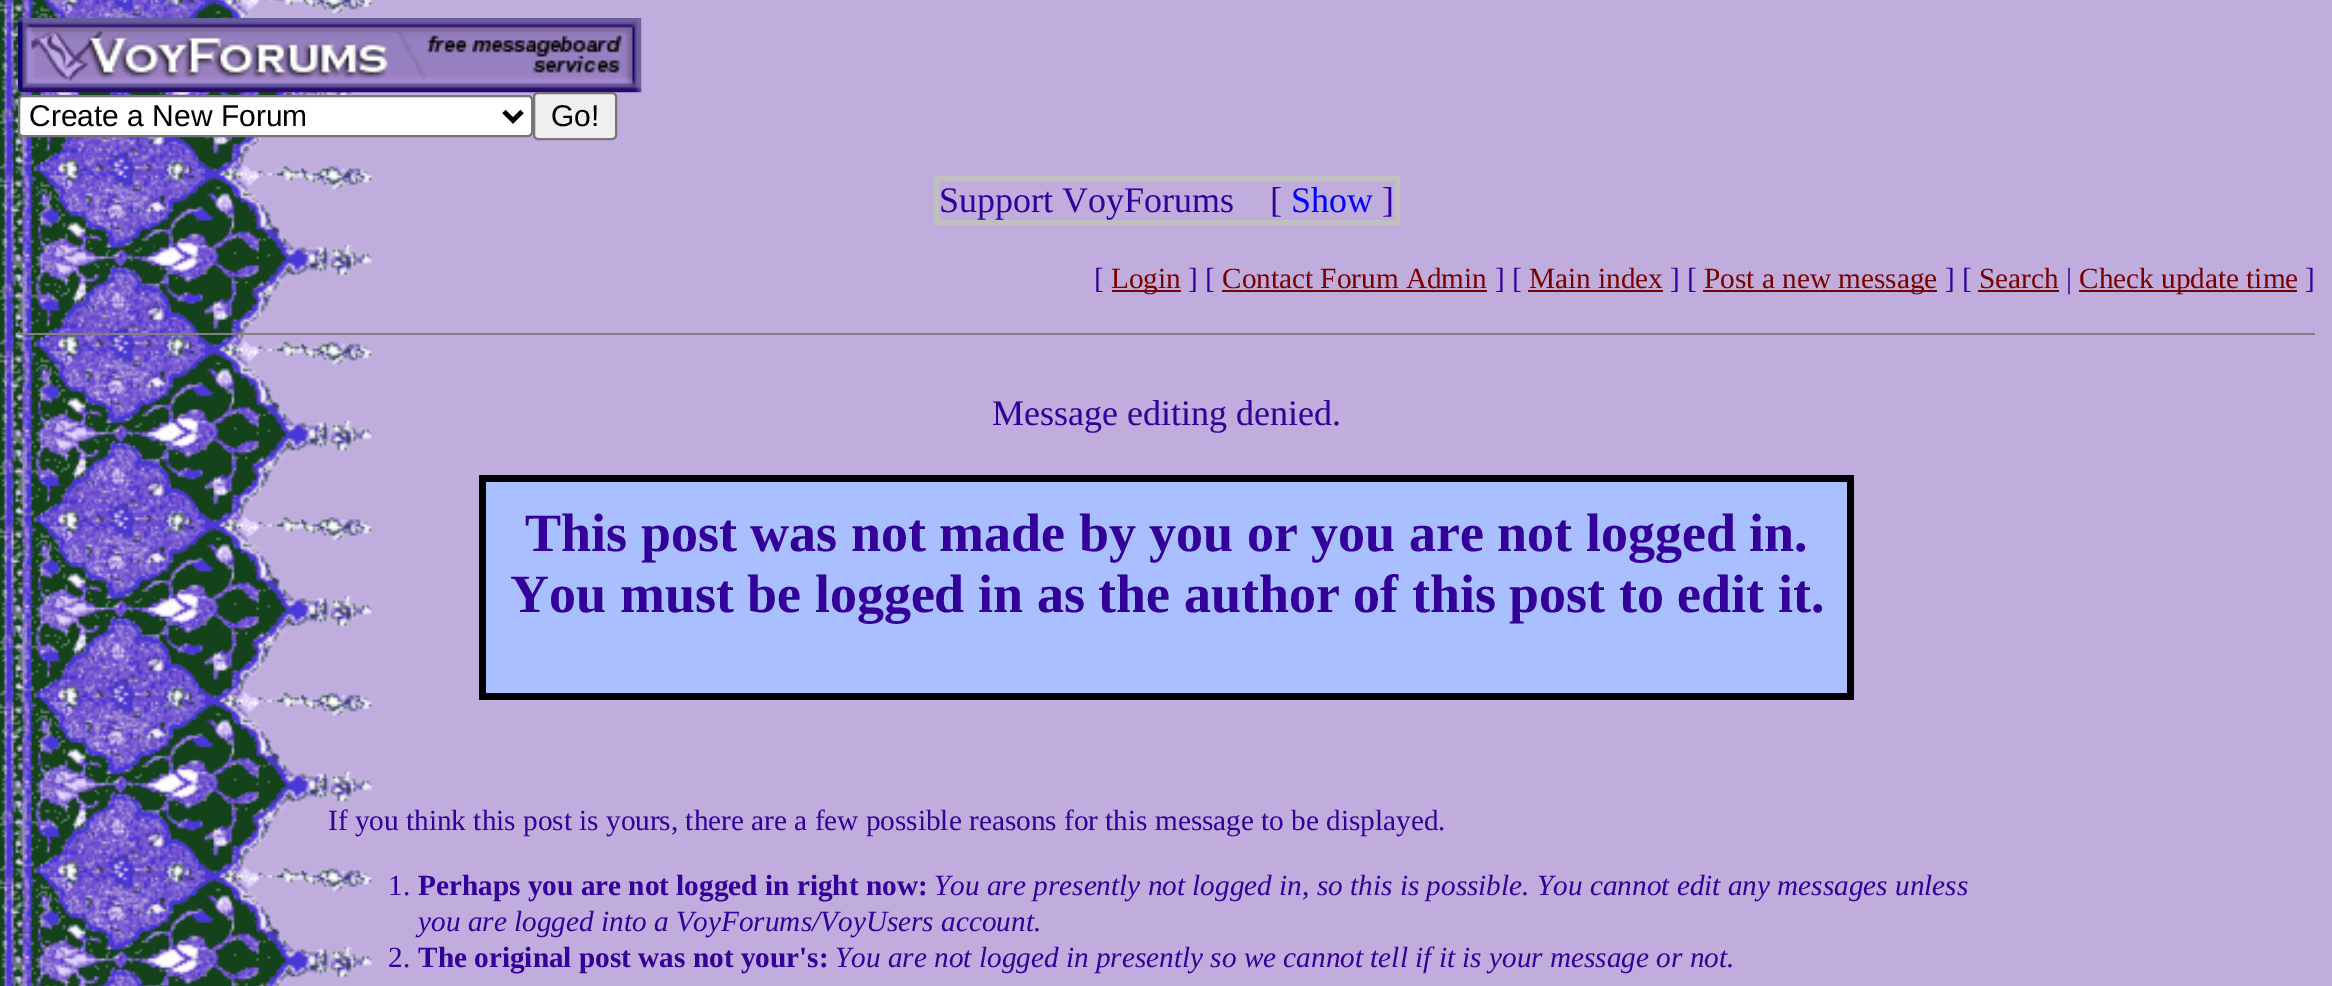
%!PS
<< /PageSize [2332 986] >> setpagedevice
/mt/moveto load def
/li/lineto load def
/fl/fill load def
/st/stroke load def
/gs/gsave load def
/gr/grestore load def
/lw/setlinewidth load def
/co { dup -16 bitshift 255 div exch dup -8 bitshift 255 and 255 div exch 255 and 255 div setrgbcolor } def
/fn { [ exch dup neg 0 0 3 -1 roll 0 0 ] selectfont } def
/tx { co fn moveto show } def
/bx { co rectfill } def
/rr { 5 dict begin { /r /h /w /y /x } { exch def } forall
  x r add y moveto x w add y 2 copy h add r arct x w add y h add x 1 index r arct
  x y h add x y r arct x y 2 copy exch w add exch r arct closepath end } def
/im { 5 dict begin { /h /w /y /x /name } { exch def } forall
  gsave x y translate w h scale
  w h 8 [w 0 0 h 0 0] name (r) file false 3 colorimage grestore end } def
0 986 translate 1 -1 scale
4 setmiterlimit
0 0 2332 986 16#FFFFFF bx
(media/1.raw) 0 0 2332 986 im
(media/2.raw) 18 18 624 75 im
19 96 513 40 4 rr gs fl gr
16#767676 co
2 lw
st
16#000000 co
4.5 lw
504 111.5 mt 513 120.5 li 522 111.5 li st
16#EFEFEF co
534 93 82 46 4 rr gs fl gr
16#767676 co
2 lw
st
16#C0C0C0 co
5 lw
936.5 178.5 461 44 rectstroke
1112 290 69 2 16#780000 bx
1222 290 265 2 16#780000 bx
1528 290 135 2 16#780000 bx
1703 290 234 2 16#780000 bx
1978 290 81 2 16#780000 bx
2079 290 218 2 16#780000 bx
18 333 2297 2 16#808080 bx
479 475 1375 225 16#000000 bx
486 482 1361 211 16#A9BFFF bx
(Create a New Forum) 29 126 /LiberationSans-Regular 30 16#000000 tx
(Go!) 551 126 /LiberationSans-Regular 30 16#000000 tx
(Support VoyForums) 939 212 /LiberationSerif-Regular 36 16#330099 tx
([) 1270 212 /LiberationSerif-Regular 36 16#330099 tx
(Show) 1291 212 /LiberationSerif-Regular 36 16#0000FF tx
(]) 1382 212 /LiberationSerif-Regular 36 16#330099 tx
([) 1094 288 /LiberationSerif-Regular 29.25 16#330099 tx
(Login) 1111 288 /LiberationSerif-Regular 29.25 16#780000 tx
(] [) 1188 288 /LiberationSerif-Regular 29.25 16#330099 tx
(Contact Forum Admin) 1222 288 /LiberationSerif-Regular 29.25 16#780000 tx
(] [) 1495 288 /LiberationSerif-Regular 29.25 16#330099 tx
(Main index) 1529 288 /LiberationSerif-Regular 29.25 16#780000 tx
(] [) 1670 288 /LiberationSerif-Regular 29.25 16#330099 tx
(Post a new message) 1704 288 /LiberationSerif-Regular 29.25 16#780000 tx
(] [) 1945 288 /LiberationSerif-Regular 29.25 16#330099 tx
(Search) 1979 288 /LiberationSerif-Regular 29.25 16#780000 tx
(|) 2066 288 /LiberationSerif-Regular 29.25 16#330099 tx
(Check update time) 2079 288 /LiberationSerif-Regular 29.25 16#780000 tx
(]) 2305 288 /LiberationSerif-Regular 29.25 16#330099 tx
(Message editing denied.) 992 425 /LiberationSerif-Regular 36 16#330099 tx
(This post was not made by you or you are not logged in.) 525 551 /LiberationSerif-Bold 54 16#330099 tx
(You must be logged in as the author of this post to edit it.) 510 612 /LiberationSerif-Bold 54 16#330099 tx
(If you think this post is yours, there are a few possible reasons for this message to be displayed.) 328 830 /LiberationSerif-Regular 29.25 16#330099 tx
(1.) 388 895 /LiberationSerif-Regular 29.25 16#330099 tx
(Perhaps you are not logged in right now:) 418 895 /LiberationSerif-Bold 29.25 16#330099 tx
(You are presently not logged in, so this is possible. You cannot edit any messages unless) 934 895 /LiberationSerif-Italic 29.25 16#330099 tx
(you are logged into a VoyForums/VoyUsers account.) 418 931 /LiberationSerif-Italic 29.25 16#330099 tx
(2.) 388 967 /LiberationSerif-Regular 29.25 16#330099 tx
(The original post was not your's:) 418 967 /LiberationSerif-Bold 29.25 16#330099 tx
(You are not logged in presently so we cannot tell if it is your message or not.) 835 967 /LiberationSerif-Italic 29.25 16#330099 tx
showpage
